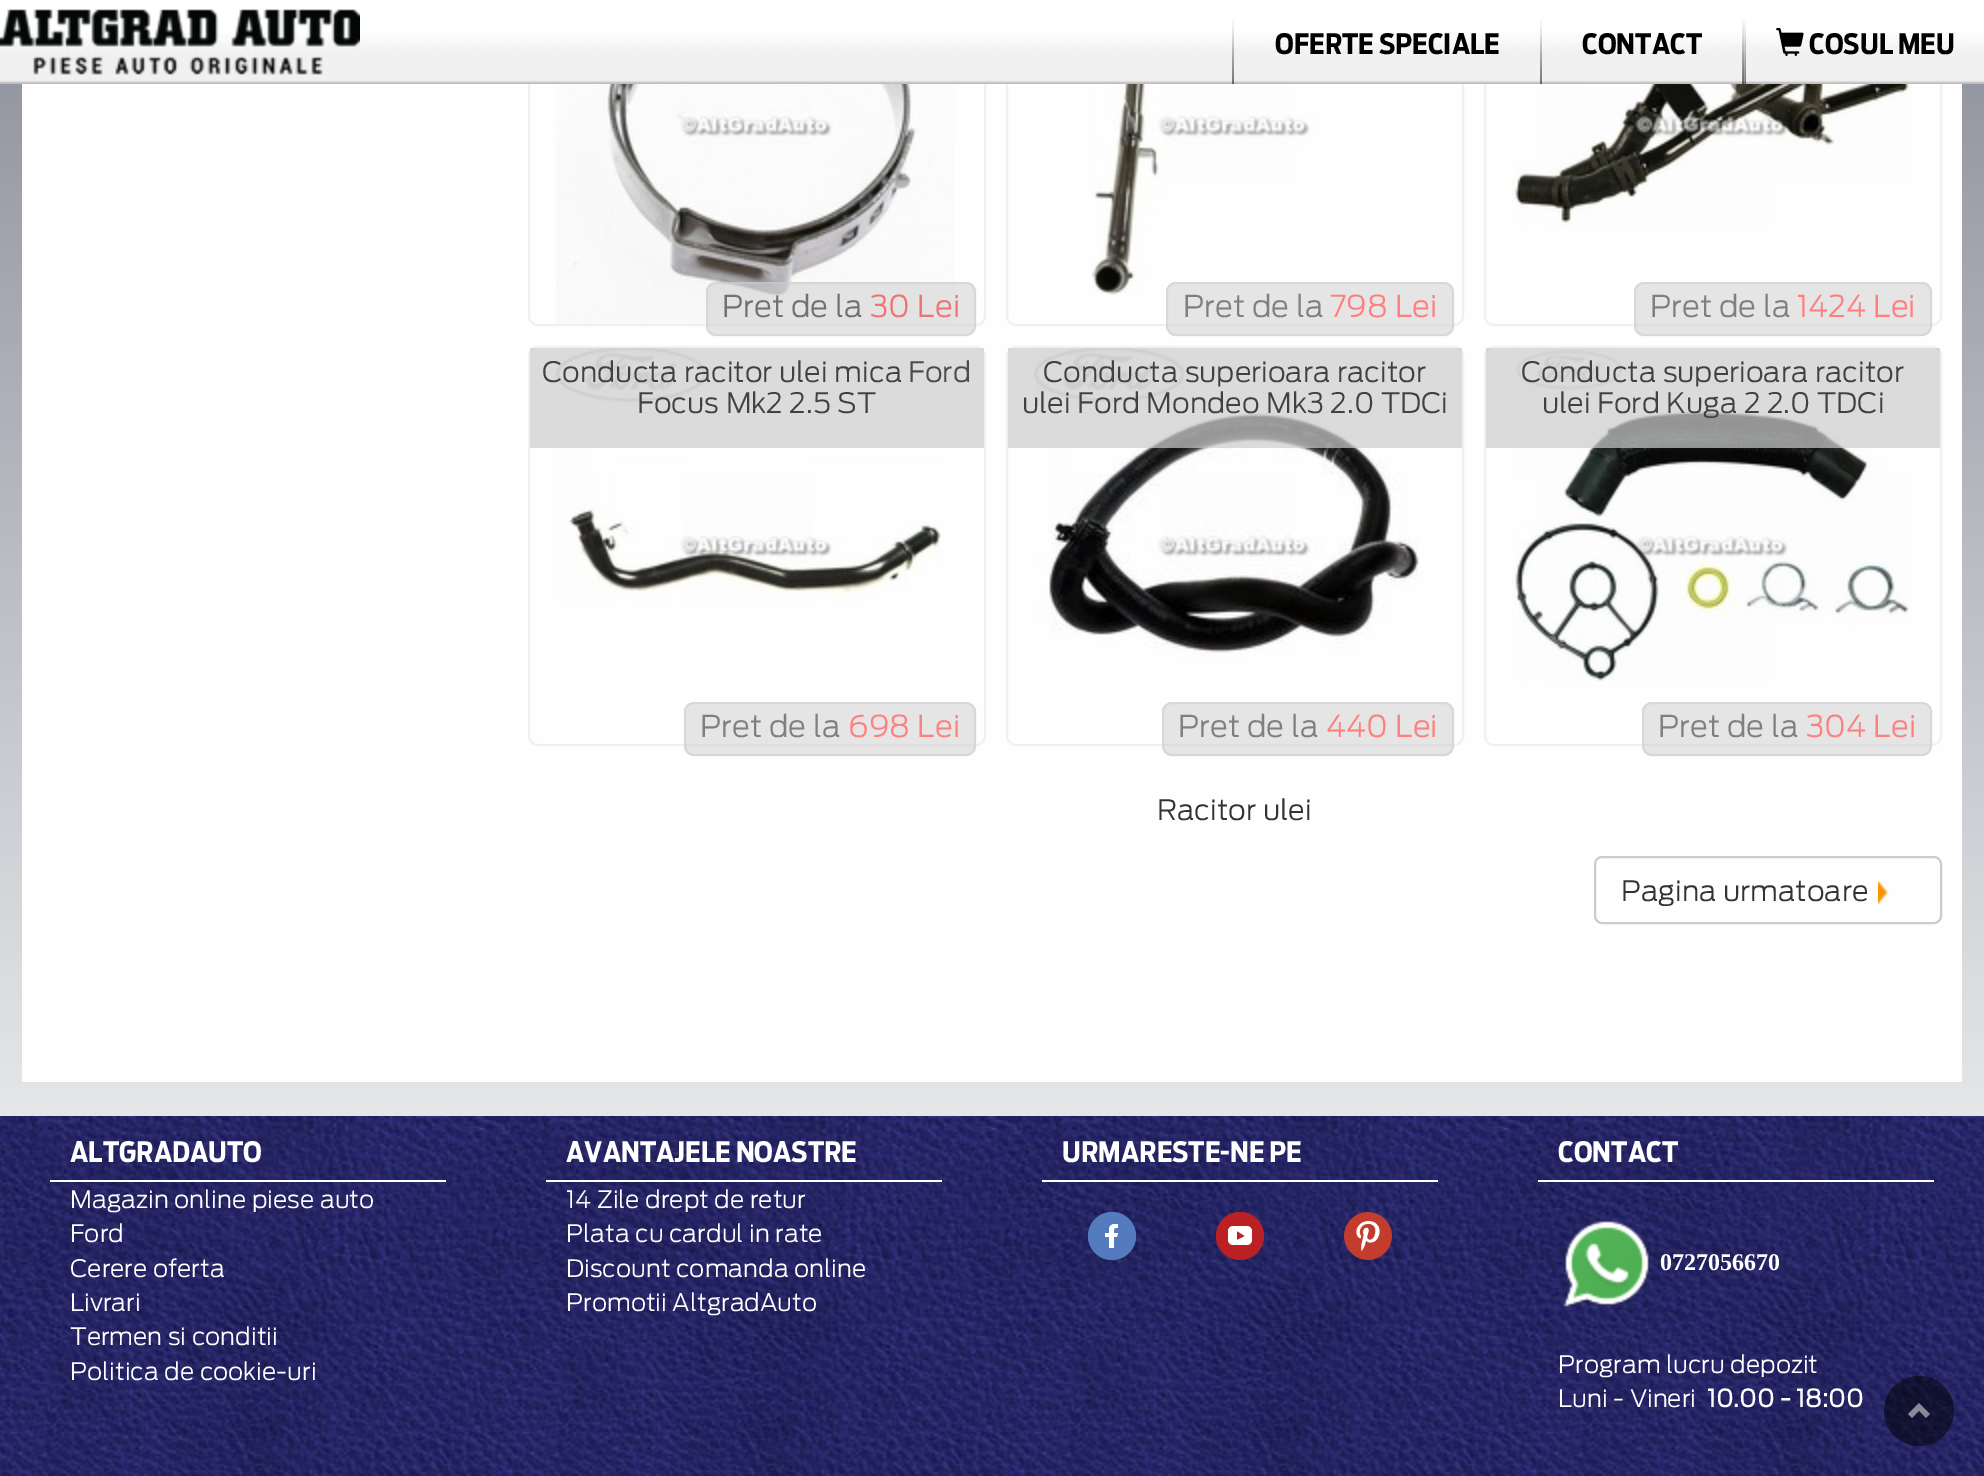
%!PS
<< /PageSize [1984 1476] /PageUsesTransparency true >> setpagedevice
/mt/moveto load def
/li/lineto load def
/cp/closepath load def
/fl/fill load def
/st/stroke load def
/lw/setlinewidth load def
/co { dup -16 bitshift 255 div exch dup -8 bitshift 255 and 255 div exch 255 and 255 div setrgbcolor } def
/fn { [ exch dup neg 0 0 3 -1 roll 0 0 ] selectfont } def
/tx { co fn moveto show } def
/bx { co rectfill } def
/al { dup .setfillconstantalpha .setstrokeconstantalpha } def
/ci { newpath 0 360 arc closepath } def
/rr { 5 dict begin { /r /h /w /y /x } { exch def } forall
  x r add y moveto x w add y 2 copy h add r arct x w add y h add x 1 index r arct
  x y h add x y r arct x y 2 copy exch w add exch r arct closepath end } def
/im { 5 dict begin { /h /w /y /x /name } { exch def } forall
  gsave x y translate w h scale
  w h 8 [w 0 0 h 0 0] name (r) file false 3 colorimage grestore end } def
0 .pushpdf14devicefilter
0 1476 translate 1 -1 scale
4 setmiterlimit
0 0 1984 1476 16#FFFFFF bx
(media/1.raw) 0 84 1984 1032 im
22 84 1940 998 16#FEFEFE bx
(media/9.raw) 556 84 399 240 im
16#F0F0F0 co
2 lw
529 -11 456 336 9 rr st
(media/10.raw) 1091 84 319 211 im
1007 -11 456 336 9 rr st
(media/11.raw) 1512 84 400 143 im
1485 -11 456 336 9 rr st
(media/2.raw) 0 0 1984 84 im
(media/3.raw) 0 9 360 66 im
(media/4.raw) 1232 18 2 66 im
(media/5.raw) 1540 18 2 66 im
(media/6.raw) 1742 18 2 66 im
(media/7.raw) 1743 18 3 66 im
(media/8.raw) 1776 28 28 28 im
0.5 al
16#CCCCCC co
706 282 270 54 10 rr fl
707 283 268 52 9 rr st
1166 282 288 54 10 rr fl
1167 283 286 52 9 rr st
1634 282 298 54 10 rr fl
1635 283 296 52 9 rr st
1 al
(media/12.raw) 556 348 385 253 im
16#F0F0F0 co
529 347 456 398 9 rr st
0.7 al
530 348 454 100 16#CCCCCC bx
0.5 al
684 702 292 54 10 rr fl
685 703 290 52 9 rr st
1 al
(media/13.raw) 1034 348 385 309 im
16#F0F0F0 co
1007 347 456 398 9 rr st
0.7 al
1008 348 454 100 16#CCCCCC bx
0.5 al
1162 702 292 54 10 rr fl
1163 703 290 52 9 rr st
1 al
(media/14.raw) 1512 349 397 333 im
16#F0F0F0 co
1485 347 456 398 9 rr st
0.7 al
1486 348 454 100 16#CCCCCC bx
0.5 al
1642 702 290 54 10 rr fl
1643 703 288 52 9 rr st
1 al
1595 857 346 66 7 rr st
(media/15.raw) 1878 882 11 22 im
(media/16.raw) 0 1116 1984 360 im
50 1180 396 2 16#FFFFFF bx
546 1180 396 2 16#FFFFFF bx
1042 1180 396 2 16#FFFFFF bx
(media/17.raw) 1088 1212 48 48 im
(media/18.raw) 1216 1212 48 48 im
(media/19.raw) 1344 1212 48 48 im
1538 1180 396 2 16#FFFFFF bx
(media/20.raw) 1563 1220 88 89 im
0.5 al
16#000000 co
1919 1411 35 ci fl
16#FFFFFF co
1930 1414 mt 1926 1418 li 1919 1410.5 li 1912 1418 li 1908 1414 li 1919 1403 li cp fl
1 al
(OFERTE SPECIALE) 1275 54 /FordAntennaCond-Bold 28 16#000000 tx
(CONTACT) 1582 54 /FordAntennaCond-Bold 28 16#000000 tx
(COSUL MEU) 1809 54 /FordAntennaCond-Bold 28 16#000000 tx
(Pret de la) 722 317 /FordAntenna-Light 30 16#717171 tx
(30 Lei) 870 317 /FordAntenna-Light 30 16#F17272 tx
(Pret de la) 1183 317 /FordAntenna-Light 30 16#7F7F7F tx
(798 Lei) 1330 317 /FordAntenna-Light 30 16#FF7F7F tx
(Pret de la) 1650 317 /FordAntenna-Light 30 16#7F7F7F tx
(1424 Lei) 1797 317 /FordAntenna-Light 30 16#FF7F7F tx
(Conducta racitor ulei mica) 542 382 /FordAntenna-Light 28 16#414141 tx
(Ford) 908 382 /FordAntenna-Light 28 16#4C4C4C tx
(Focus Mk2 2.5 ST) 637 413 /FordAntenna-Light 28 16#414141 tx
(Pret de la) 700 737 /FordAntenna-Light 30 16#7F7F7F tx
(698 Lei) 848 737 /FordAntenna-Light 30 16#FF7F7F tx
(Conducta superioara racitor) 1043 382 /FordAntenna-Light 28 16#414141 tx
(ulei Ford Mondeo Mk3 2.0 TDCi) 1022 413 /FordAntenna-Light 28 16#414141 tx
(Pret de la) 1178 737 /FordAntenna-Light 30 16#7F7F7F tx
(440 Lei) 1326 737 /FordAntenna-Light 30 16#FF7F7F tx
(Conducta superioara racitor) 1521 382 /FordAntenna-Light 28 16#414141 tx
(ulei) 1542 413 /FordAntenna-Light 28 16#414141 tx
(Ford Kuga 2 2.0 TDCi) 1597 413 /FordAntenna-Light 28 16#414141 tx
(Pret de la) 1658 737 /FordAntenna-Light 30 16#7F7F7F tx
(304 Lei) 1806 737 /FordAntenna-Light 30 16#FF7F7F tx
(Racitor ulei) 1157 820 /FordAntenna-Light 28 16#333333 tx
(Pagina urmatoare) 1621 901 /FordAntenna-Light 28 16#333333 tx
(ALTGRADAUTO) 70 1162 /FordAntennaCond-Bold 28 16#FFFFFF tx
(Magazin online piese auto) 70 1208 /FordAntenna-Light 24 16#FFFFFF tx
(Ford) 70 1242 /FordAntenna-Light 24 16#FFFFFF tx
(Cerere oferta) 70 1277 /FordAntenna-Light 24 16#FFFFFF tx
(Livrari) 70 1311 /FordAntenna-Light 24 16#FFFFFF tx
(Termen si conditii) 70 1345 /FordAntenna-Light 24 16#FFFFFF tx
(Politica de cookie-uri) 70 1380 /FordAntenna-Light 24 16#FFFFFF tx
(AVANTAJELE NOASTRE) 566 1162 /FordAntennaCond-Bold 28 16#FFFFFF tx
(14 Zile drept de retur) 566 1208 /FordAntenna-Light 24 16#FFFFFF tx
(Plata cu cardul in rate) 566 1242 /FordAntenna-Light 24 16#FFFFFF tx
(Discount comanda online) 566 1277 /FordAntenna-Light 24 16#FFFFFF tx
(Promotii AltgradAuto) 566 1311 /FordAntenna-Light 24 16#FFFFFF tx
(URMARESTE-NE PE) 1062 1162 /FordAntennaCond-Bold 28 16#FFFFFF tx
(CONTACT) 1558 1162 /FordAntennaCond-Bold 28 16#FFFFFF tx
(0727056670) 1660 1270 /LiberationSerif-Bold 24 16#FFFFFF tx
(Program lucru depozit) 1558 1373 /FordAntenna-Light 24 16#FFFFFF tx
(Luni - Vineri) 1558 1407 /FordAntenna-Light 24 16#FFFFFF tx
(10.00 - 18:00) 1707 1407 /FordAntenna-Bold 24 16#FFFFFF tx
.poppdf14devicefilter showpage
